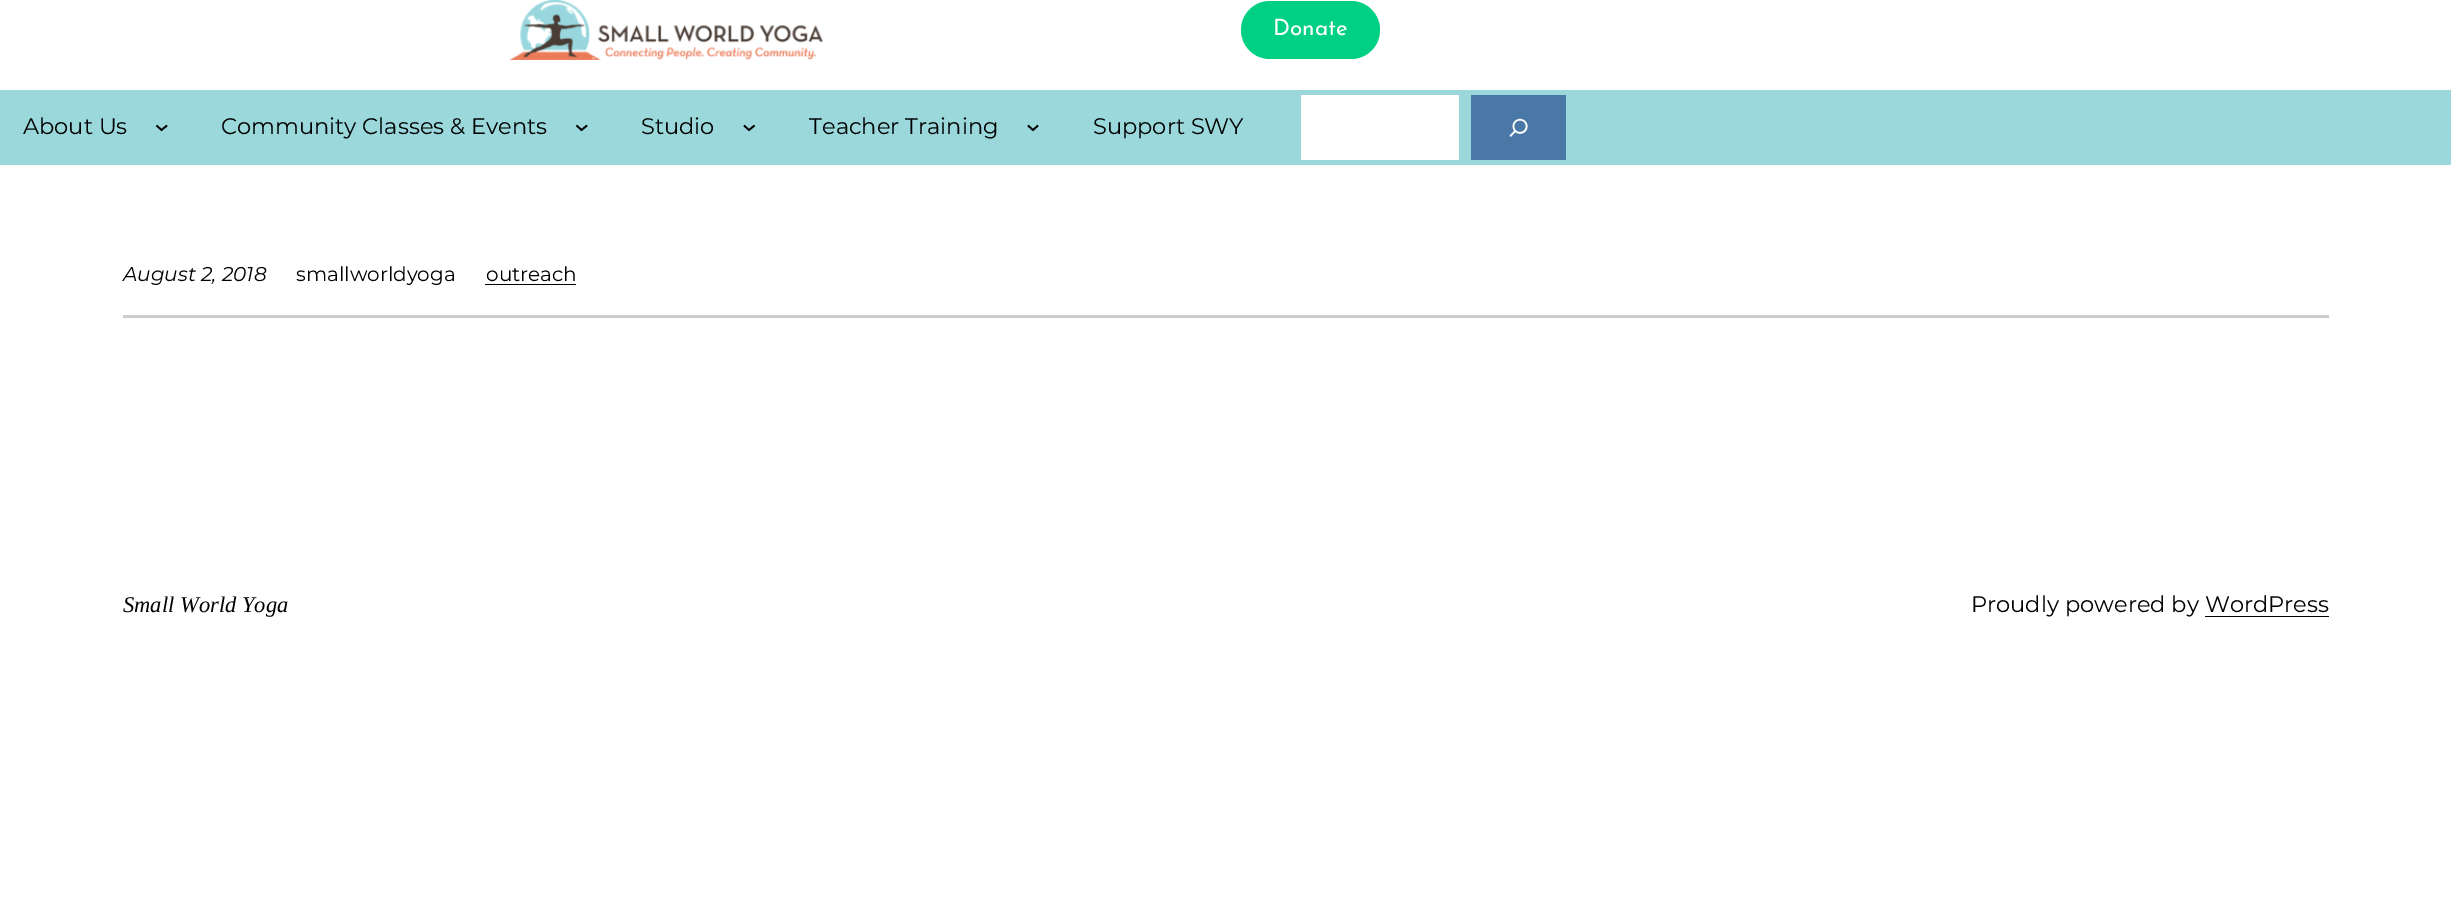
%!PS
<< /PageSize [2451 916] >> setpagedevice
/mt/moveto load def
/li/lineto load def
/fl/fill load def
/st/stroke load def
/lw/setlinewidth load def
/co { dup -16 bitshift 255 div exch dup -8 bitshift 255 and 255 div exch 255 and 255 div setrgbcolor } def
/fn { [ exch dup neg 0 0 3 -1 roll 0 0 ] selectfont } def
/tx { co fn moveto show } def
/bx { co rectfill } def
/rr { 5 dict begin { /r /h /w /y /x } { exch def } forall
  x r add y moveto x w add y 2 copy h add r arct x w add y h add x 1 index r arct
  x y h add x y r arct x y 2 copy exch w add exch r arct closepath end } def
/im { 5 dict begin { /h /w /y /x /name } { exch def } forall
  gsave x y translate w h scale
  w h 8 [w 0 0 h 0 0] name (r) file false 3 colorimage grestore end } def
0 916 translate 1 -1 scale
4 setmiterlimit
0 0 2451 916 16#FFFFFF bx
(media/1.raw) 510 0 313 60 im
16#00D084 co
1241 1 139 58 29 rr fl
0 90 2451 75 16#9AD8DB bx
16#000000 co
1.7 lw
156.5 125.5 mt 161.5 130 li 167 125.5 li st
576.5 125.5 mt 581.5 130 li 587 125.5 li st
744 125.5 mt 749 130 li 754.5 125.5 li st
1028 125.5 mt 1033 130 li 1038 125.5 li st
1301 95 158 65 16#FFFFFF bx
1471 95 95 65 16#4A78A6 bx
(media/2.raw) 1509 118 19 19 im
485 284 91 1 16#000000 bx
123 315 2206 3 16#CCCCCC bx
2205 616 124 1 16#000000 bx
(Donate) 1273 35 /JosefinSans-Regular 22.5 16#FFFFFF tx
(About Us) 23 134 /Montserrat-Regular 22.5 16#000000 tx
(Community Classes & Events) 221 134 /Montserrat-Regular 22.5 16#000000 tx
(Studio) 641 134 /Montserrat-Regular 22.5 16#000000 tx
(Teacher Training) 809 134 /Montserrat-Regular 22.5 16#000000 tx
(Support SWY) 1093 134 /Montserrat-Regular 22.5 16#000000 tx
(August 2, 2018) 123 281 /Montserrat-Italic 20 16#000000 tx
(smallworldyoga) 296 281 /Montserrat-Regular 20 16#000000 tx
(outreach) 486 281 /Montserrat-Regular 20 16#000000 tx
(Small World Yoga) 123 612 /LiberationSerif-Italic 22.5 16#000000 tx
(Proudly powered by WordPress) 1971 612 /Montserrat-Regular 22.5 16#000000 tx
showpage
